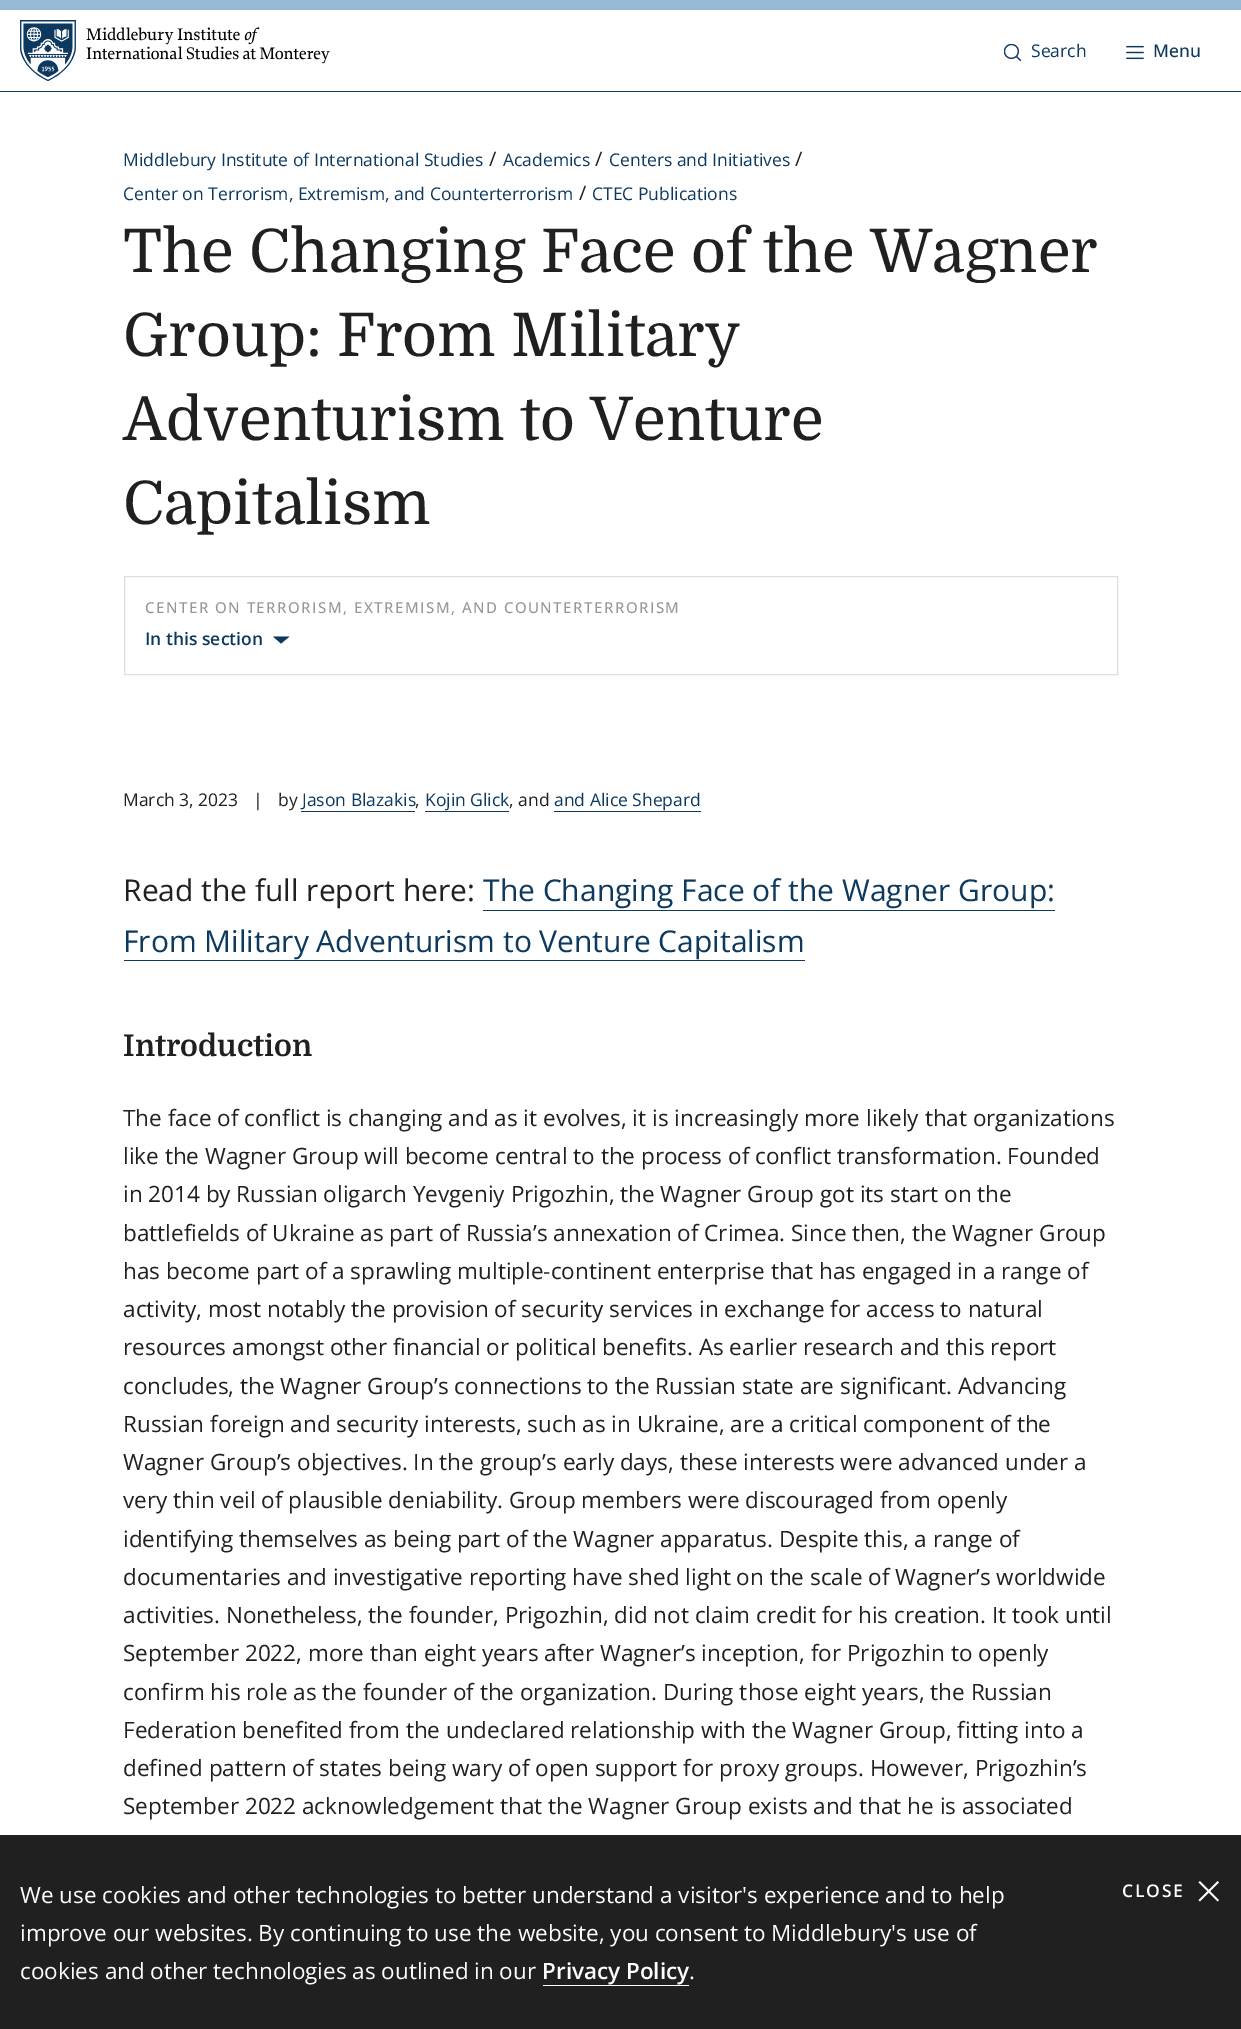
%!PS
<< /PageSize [1241 2029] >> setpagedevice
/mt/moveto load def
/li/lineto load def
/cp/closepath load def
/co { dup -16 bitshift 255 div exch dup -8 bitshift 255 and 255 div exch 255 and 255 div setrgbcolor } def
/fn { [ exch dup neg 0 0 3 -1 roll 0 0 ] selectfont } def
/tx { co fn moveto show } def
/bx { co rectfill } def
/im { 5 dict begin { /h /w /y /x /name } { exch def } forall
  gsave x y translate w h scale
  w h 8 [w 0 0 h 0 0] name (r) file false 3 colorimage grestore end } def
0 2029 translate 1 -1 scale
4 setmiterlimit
0 0 1241 2029 16#FFFFFF bx
0 0 1241 10 16#97BBD5 bx
0 91 1241 1 16#0D395F bx
(media/1.raw) 20 20 310 61 im
(media/2.raw) 1004 44 17 17 im
(media/3.raw) 1126 45 18 15 im
16#DEDEDE co
124.5 576.5 993 98 rectstroke
16#0D395F co
289.5 636.5 mt 281 643.5 li 273 636.5 li cp eofill
301 811 114 1 16#0D395F bx
425 811 84 1 16#0D395F bx
554 811 147 1 16#0D395F bx
483 910 572 1 16#0D395F bx
124 960 681 1 16#0D395F bx
0 1835 1241 194 16#202020 bx
543 1985 146 1 16#FFFFFF bx
(media/4.raw) 1198 1881 21 21 im
(Search) 1031 57 /OpenSans-Regular 17.5 16#0D395F tx
(Menu) 1153 57 /OpenSans-Medium 17.5 16#0D395F tx
(Middlebury Institute of International Studies) 123 166 /OpenSans-Regular 17.5 16#0D395F tx
(/) 489 166 /OpenSans-Regular 20 16#202020 tx
(Academics) 503 166 /OpenSans-Regular 17.5 16#0D395F tx
(/) 595 166 /OpenSans-Regular 20 16#202020 tx
(Centers and Initiatives) 609 166 /OpenSans-Regular 17.5 16#0D395F tx
(/) 795 166 /OpenSans-Regular 20 16#202020 tx
(Center on Terrorism, Extremism, and Counterterrorism) 123 200 /OpenSans-Regular 17.5 16#0D395F tx
(/) 579 200 /OpenSans-Regular 20 16#202020 tx
(CTEC Publications) 592 200 /OpenSans-Regular 17.5 16#0D395F tx
(The Changing Face of the Wagner) 123 272 /Domine-Regular 60 16#202020 tx
(Group: From Military) 123 356 /Domine-Regular 60 16#202020 tx
(Adventurism to Venture) 123 440 /Domine-Regular 60 16#202020 tx
(Capitalism) 123 524 /Domine-Regular 60 16#202020 tx
/OpenSans-Medium 15 fn
16#979797 co
145 613 mt 1.5 0 (CENTER ON TERRORISM, EXTREMISM, AND COUNTERTERRORISM) ashow
(In this section) 145 645 /OpenSans-SemiBold 17.5 16#0D395F tx
(March 3, 2023) 123 806 /OpenSans-Regular 17.5 16#202020 tx
(|) 253 806 /OpenSans-Regular 17.5 16#202020 tx
(by) 278 806 /OpenSans-Regular 17.5 16#202020 tx
(Jason Blazakis) 302 806 /OpenSans-Regular 17.5 16#0D395F tx
(,) 415 806 /OpenSans-Regular 17.5 16#202020 tx
(Kojin Glick) 425 806 /OpenSans-Regular 17.5 16#0D395F tx
(, and) 509 806 /OpenSans-Regular 17.5 16#202020 tx
(and Alice Shepard) 554 806 /OpenSans-Regular 17.5 16#0D395F tx
(Read the full report here:) 123 901 /OpenSans-Regular 30 16#202020 tx
(The Changing Face of the Wagner Group:) 483 901 /OpenSans-Regular 30 16#0D395F tx
(From Military Adventurism to Venture Capitalism) 123 952 /OpenSans-Regular 30 16#0D395F tx
(Introduction) 123 1056 /Domine-Bold 30 16#202020 tx
(The face of conflict is changing and as it evolves, it is increasingly more likely that organizations) 123 1126 /OpenSans-Regular 22.5 16#202020 tx
(like the Wagner Group will become central to the process of conflict transformation. Founded) 123 1164 /OpenSans-Regular 22.5 16#202020 tx
(in 2014 by Russian oligarch Yevgeniy Prigozhin, the Wagner Group got its start on the) 123 1202 /OpenSans-Regular 22.5 16#202020 tx
(battlefields of Ukraine as part of Russia’s annexation of Crimea. Since then, the Wagner Group) 123 1241 /OpenSans-Regular 22.5 16#202020 tx
(has become part of a sprawling multiple-continent enterprise that has engaged in a range of) 123 1279 /OpenSans-Regular 22.5 16#202020 tx
(activity, most notably the provision of security services in exchange for access to natural) 123 1317 /OpenSans-Regular 22.5 16#202020 tx
(resources amongst other financial or political benefits. As earlier research and this report) 123 1355 /OpenSans-Regular 22.5 16#202020 tx
(concludes, the Wagner Group’s connections to the Russian state are significant. Advancing) 123 1394 /OpenSans-Regular 22.5 16#202020 tx
(Russian foreign and security interests, such as in Ukraine, are a critical component of the) 123 1432 /OpenSans-Regular 22.5 16#202020 tx
(Wagner Group’s objectives. In the group’s early days, these interests were advanced under a) 123 1470 /OpenSans-Regular 22.5 16#202020 tx
(very thin veil of plausible deniability. Group members were discouraged from openly) 123 1508 /OpenSans-Regular 22.5 16#202020 tx
(identifying themselves as being part of the Wagner apparatus. Despite this, a range of) 123 1547 /OpenSans-Regular 22.5 16#202020 tx
(documentaries and investigative reporting have shed light on the scale of Wagner’s worldwide) 123 1585 /OpenSans-Regular 22.5 16#202020 tx
(activities. Nonetheless, the founder, Prigozhin, did not claim credit for his creation. It took until) 123 1623 /OpenSans-Regular 22.5 16#202020 tx
(September 2022, more than eight years after Wagner’s inception, for Prigozhin to openly) 123 1661 /OpenSans-Regular 22.5 16#202020 tx
(confirm his role as the founder of the organization. During those eight years, the Russian) 123 1700 /OpenSans-Regular 22.5 16#202020 tx
(Federation benefited from the undeclared relationship with the Wagner Group, fitting into a) 123 1738 /OpenSans-Regular 22.5 16#202020 tx
(defined pattern of states being wary of open support for proxy groups. However, Prigozhin’s) 123 1776 /OpenSans-Regular 22.5 16#202020 tx
(September 2022 acknowledgement that the Wagner Group exists and that he is associated) 123 1814 /OpenSans-Regular 22.5 16#202020 tx
(We use cookies and other technologies to better understand a visitor's experience and to help) 20 1903 /OpenSans-Regular 22.5 16#FFFFFF tx
(improve our websites. By continuing to use the website, you consent to Middlebury's use of) 20 1941 /OpenSans-Regular 22.5 16#FFFFFF tx
(cookies and other technologies as outlined in our) 20 1979 /OpenSans-Regular 22.5 16#FFFFFF tx
(Privacy Policy) 542 1979 /OpenSans-SemiBold 22.5 16#FFFFFF tx
(.) 689 1979 /OpenSans-Regular 22.5 16#FFFFFF tx
/OpenSans-SemiBold 17.5 fn
1122 1897 mt 1.75 0 (CLOSE) ashow
showpage
